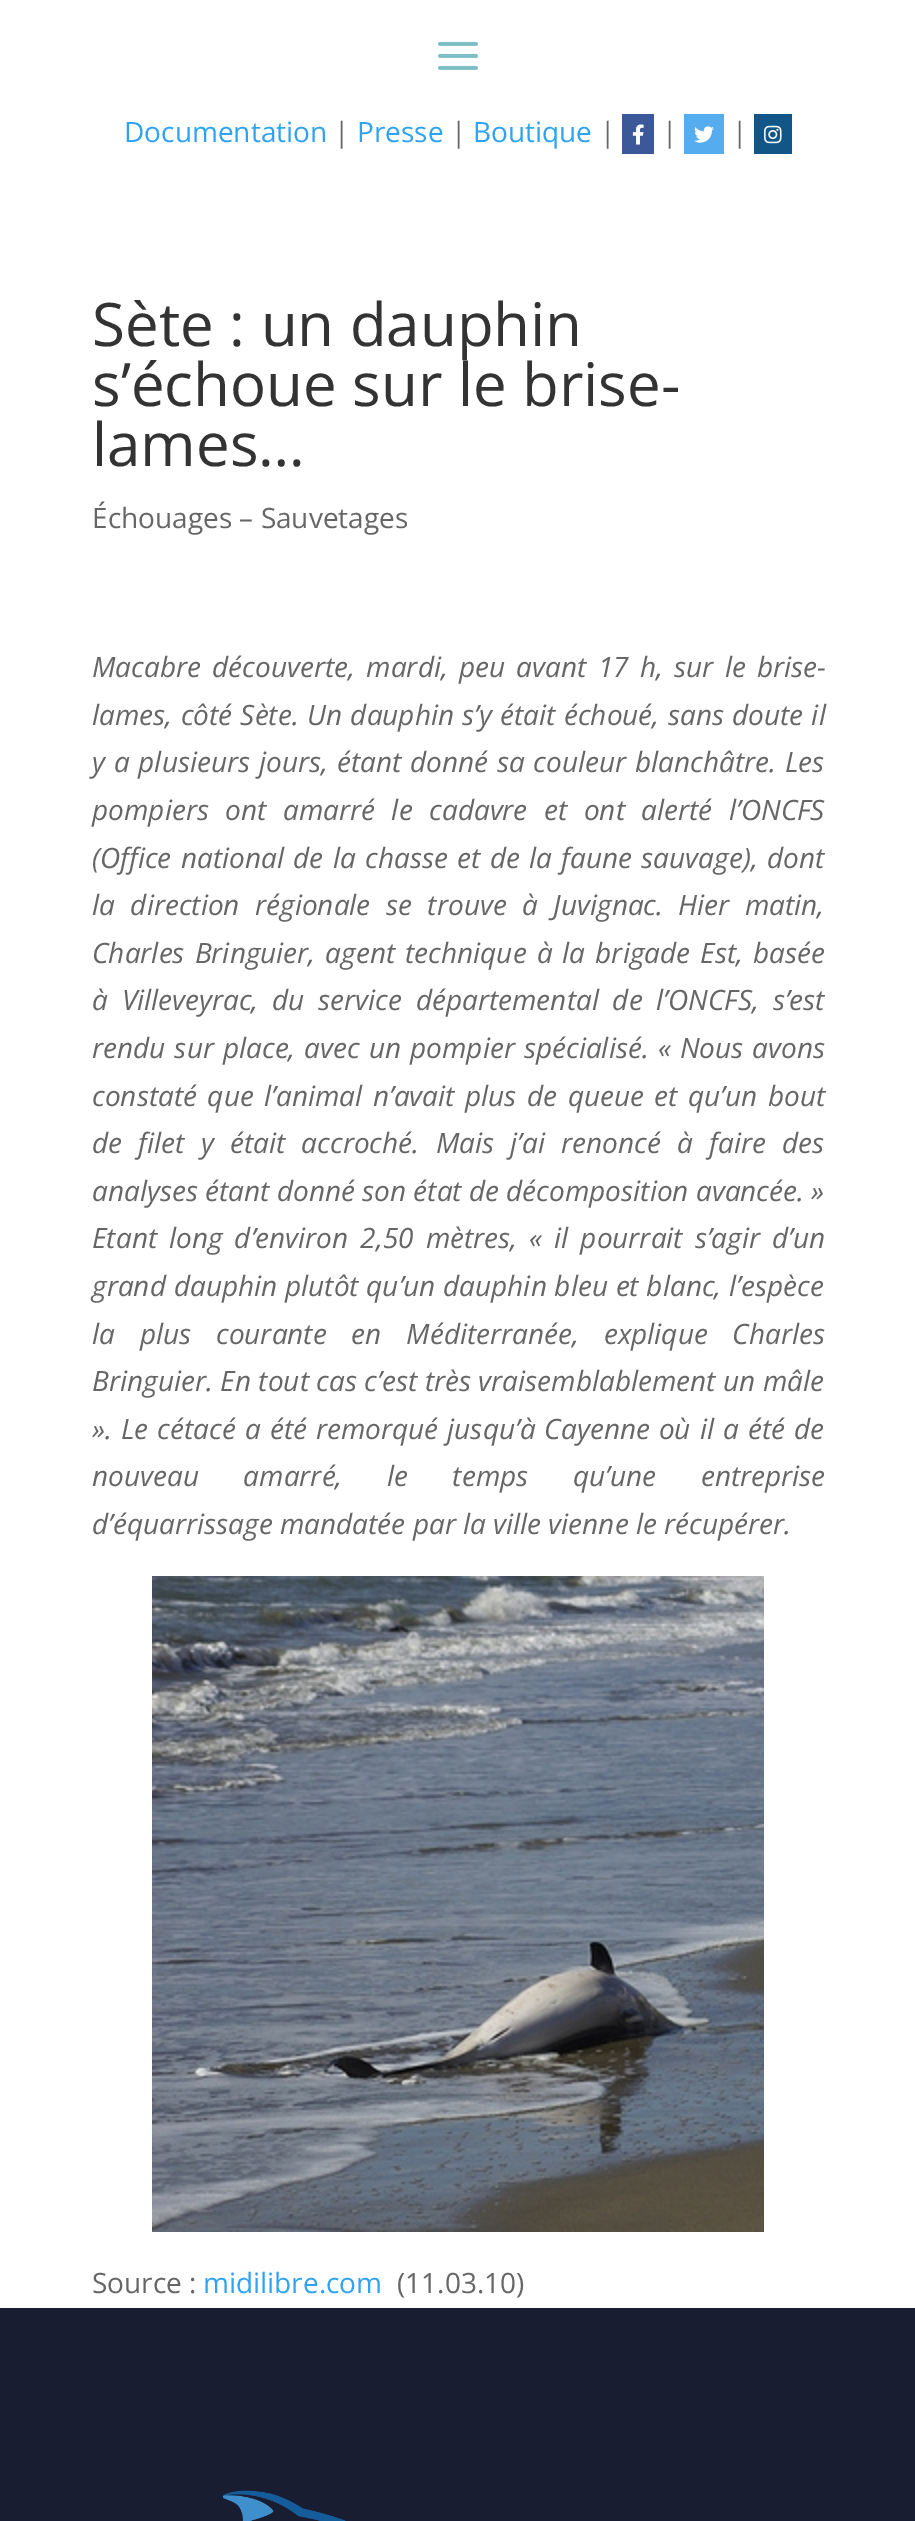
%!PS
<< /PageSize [915 2521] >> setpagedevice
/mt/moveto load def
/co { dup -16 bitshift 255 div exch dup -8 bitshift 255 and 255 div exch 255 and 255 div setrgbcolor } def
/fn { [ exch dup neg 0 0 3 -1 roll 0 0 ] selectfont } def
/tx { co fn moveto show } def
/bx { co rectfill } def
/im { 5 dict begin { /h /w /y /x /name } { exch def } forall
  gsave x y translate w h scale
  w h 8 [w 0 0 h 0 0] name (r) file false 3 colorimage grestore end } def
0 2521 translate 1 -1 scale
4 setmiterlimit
0 0 915 2521 16#FFFFFF bx
(media/1.raw) 438 41 40 29 im
622 114 32 40 16#3B5998 bx
(media/2.raw) 632 124 12 21 im
684 114 40 40 16#55ACEE bx
(media/3.raw) 694 126 20 17 im
754 114 38 40 16#125688 bx
(media/4.raw) 764 125 18 19 im
(media/5.raw) 152 1576 612 656 im
0 2308 915 213 16#191D32 bx
(media/6.raw) 222 2490 124 31 im
(Documentation) 124 142 /OpenSans-Regular 28 16#2EA3F2 tx
(|) 334 142 /OpenSans-Regular 28 16#666666 tx
(Presse) 357 142 /OpenSans-Regular 28 16#2EA3F2 tx
(|) 451 142 /OpenSans-Regular 28 16#666666 tx
(Boutique) 473 142 /OpenSans-Regular 28 16#2EA3F2 tx
(|) 600 142 /OpenSans-Regular 28 16#666666 tx
(|) 662 142 /OpenSans-Regular 28 16#666666 tx
(|) 732 142 /OpenSans-Regular 28 16#666666 tx
(Sète : un dauphin) 92 346 /OpenSans-Regular 60 16#333333 tx
(s’échoue sur le brise-) 92 406 /OpenSans-Regular 60 16#333333 tx
(lames…) 92 466 /OpenSans-Regular 60 16#333333 tx
(Échouages – Sauvetages) 92 528 /OpenSans-Regular 28 16#666666 tx
/OpenSans-Italic 28 fn
92 677 mt 4 0 32 (Macabre découverte, mardi, peu avant 17 h, sur le brise-) widthshow
92 725 mt 1 0 32 (lames, côté Sète. Un dauphin s’y était échoué, sans doute il) widthshow
92 772 mt 1.5 0 32 (y a plusieurs jours, étant donné sa couleur blanchâtre. Les) widthshow
92 820 mt 9.25 0 32 (pompiers ont amarré le cadavre et ont alerté l’ONCFS) widthshow
92 868 mt 2.1 0 32 (\(Office national de la chasse et de la faune sauvage\), dont) widthshow
92 915 mt 8.25 0 32 (la direction régionale se trouve à Juvignac.) widthshow
678 915 mt 8.25 0 32 (Hier matin,) widthshow
92 963 mt 2.75 0 32 (Charles Bringuier, agent technique à la brigade Est, basée) widthshow
92 1010 mt 6.5 0 32 (à Villeveyrac, du service départemental de l’ONCFS, s’est) widthshow
92 1058 mt 1.75 0 32 (rendu sur place, avec un pompier spécialisé. « Nous avons) widthshow
92 1106 mt 3.25 0 32 (constaté que l’animal n’avait plus de queue et qu’un bout) widthshow
92 1153 mt 9 0 32 (de filet y était accroché. Mais j’ai renoncé à faire des) widthshow
(analyses étant donné son état de décomposition avancée. ») 92 1201 /OpenSans-Italic 28 16#666666 tx
92 1248 mt 4.75 0 32 (Etant long d’environ 2,50 mètres, « il pourrait s’agir d’un) widthshow
92 1296 mt .5 0 32 (grand dauphin plutôt qu’un) widthshow
443 1296 mt .5 0 32 (dauphin bleu et blanc, l’espèce) widthshow
92 1344 mt 17.5 0 32 (la plus courante en Méditerranée, explique Charles) widthshow
92 1391 mt .25 0 32 (Bringuier. En tout cas c’est très vraisemblablement un mâle) widthshow
(».) 92 1439 /OpenSans-Italic 28 16#666666 tx
121 1439 mt 1.75 0 32 (Le cétacé a été remorqué jusqu’à Cayenne où il a été de) widthshow
92 1486 mt 37.25 0 32 (nouveau amarré, le temps qu’une entreprise) widthshow
(d’équarrissage mandatée par la ville vienne le récupérer.) 92 1534 /OpenSans-Italic 28 16#666666 tx
(Source :) 92 2293 /OpenSans-Regular 28 16#666666 tx
(midilibre.com) 203 2293 /OpenSans-Regular 28 16#2EA3F2 tx
(\(11.03.10\)) 397 2293 /OpenSans-Regular 28 16#666666 tx
showpage
